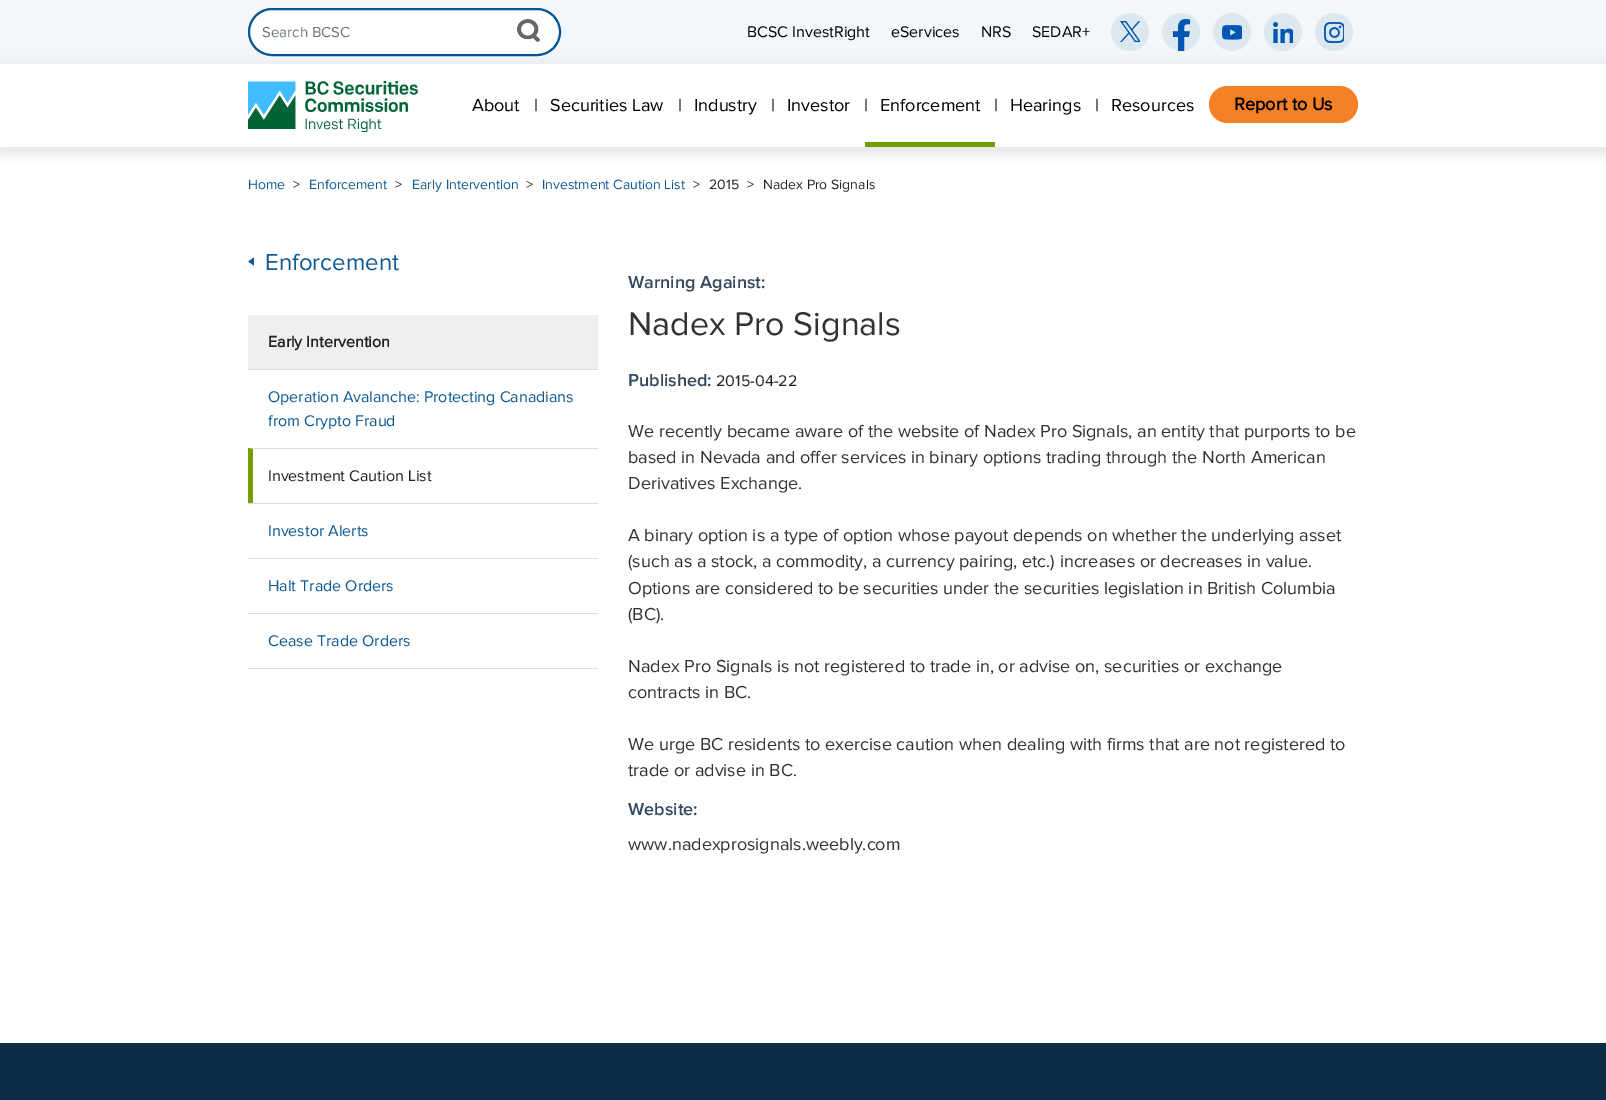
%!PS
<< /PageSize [1606 1100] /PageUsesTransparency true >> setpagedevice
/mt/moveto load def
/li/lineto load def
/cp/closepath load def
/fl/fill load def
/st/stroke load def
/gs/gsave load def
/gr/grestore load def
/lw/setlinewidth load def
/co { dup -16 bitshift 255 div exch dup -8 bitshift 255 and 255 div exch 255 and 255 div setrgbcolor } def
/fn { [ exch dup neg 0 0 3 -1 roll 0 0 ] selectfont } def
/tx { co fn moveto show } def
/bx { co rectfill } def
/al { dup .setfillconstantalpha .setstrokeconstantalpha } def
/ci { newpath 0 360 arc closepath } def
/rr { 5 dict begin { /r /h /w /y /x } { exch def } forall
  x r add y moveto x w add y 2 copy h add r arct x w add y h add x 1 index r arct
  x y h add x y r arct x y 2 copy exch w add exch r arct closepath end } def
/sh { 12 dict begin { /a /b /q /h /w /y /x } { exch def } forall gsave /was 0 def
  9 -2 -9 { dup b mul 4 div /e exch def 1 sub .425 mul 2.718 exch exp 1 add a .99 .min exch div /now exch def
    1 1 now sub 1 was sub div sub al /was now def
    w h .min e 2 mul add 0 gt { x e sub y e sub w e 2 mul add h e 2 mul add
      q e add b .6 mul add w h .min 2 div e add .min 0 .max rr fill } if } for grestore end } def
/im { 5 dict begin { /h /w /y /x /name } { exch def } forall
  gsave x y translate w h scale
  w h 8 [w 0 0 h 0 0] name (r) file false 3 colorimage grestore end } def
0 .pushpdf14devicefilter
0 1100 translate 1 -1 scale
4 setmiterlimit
0 0 1606 1100 16#FFFFFF bx
0 0 1606 64 16#F3F7F9 bx
16#FFFFFF co
249 9 311 46 23 rr gs fl gr
16#015496 co
2 lw
st
(media/1.raw) 517 19 23 23 im
16#DCE7EF co
1130 32 19 ci fl
(media/2.raw) 1120 21 20 22 im
1181 32 19 ci fl
(media/3.raw) 1172 19 19 32 im
1232 32 19 ci fl
(media/4.raw) 1222 25 20 15 im
1283 32 19 ci fl
(media/5.raw) 1273 22 20 21 im
1334 32 19 ci fl
(media/6.raw) 1324 22 20 21 im
gs
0 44 mt 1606 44 li 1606 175 li 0 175 li cp 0 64 mt 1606 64 li 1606 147 li 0 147 li cp eoclip newpath
16#000000 co
-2 66 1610 87 0 7 .11 sh
gr
(media/7.raw) 248 81 170 51 im
865 142 130 5 16#749D01 bx
16#F58025 co
1209 86 149 37 18.5 rr fl
(media/8.raw) 248 257 6 9 im
248 315 350 54 16#EFEFEF bx
248 369 350 1 16#DDDDDD bx
248 448 mt 598 448 li 598 449 li 253 449 li cp fl
16#749D01 co
248 503 mt 248 448 li 253 449 li 253 503 li cp fl
248 503 350 1 16#DDDDDD bx
248 558 350 1 16#DDDDDD bx
248 613 350 1 16#DDDDDD bx
248 668 350 1 16#DDDDDD bx
0 1043 1606 57 16#0D2B47 bx
(Search BCSC) 262 37 /ProximaNova-Regular 15 16#6C757D tx
(BCSC InvestRight) 747 37 /ProximaNova-Regular 16 16#000000 tx
(eServices) 891 37 /ProximaNova-Regular 16 16#000000 tx
(NRS) 981 37 /ProximaNova-Regular 16 16#000000 tx
(SEDAR+) 1032 37 /ProximaNova-Regular 16 16#000000 tx
(About) 472 111 /ProximaNova-Regular 18 16#000000 tx
(|) 534 111 /ProximaNova-Regular 18 16#000000 tx
(Securities Law) 550 111 /ProximaNova-Regular 18 16#000000 tx
(|) 678 111 /ProximaNova-Regular 18 16#000000 tx
(Industry) 694 111 /ProximaNova-Regular 18 16#000000 tx
(|) 771 111 /ProximaNova-Regular 18 16#000000 tx
(Investor) 787 111 /ProximaNova-Regular 18 16#000000 tx
(|) 864 111 /ProximaNova-Regular 18 16#000000 tx
(Enforcement) 880 111 /ProximaNova-Regular 18 16#000000 tx
(|) 994 111 /ProximaNova-Regular 18 16#000000 tx
(Hearings) 1010 111 /ProximaNova-Regular 18 16#000000 tx
(|) 1095 111 /ProximaNova-Regular 18 16#000000 tx
(Resources) 1111 111 /ProximaNova-Regular 18 16#000000 tx
(Report to Us) 1234 110 /ProximaNova-Bold 18 16#000000 tx
(Home) 248 189 /ProximaNova-Regular 14 16#0E5993 tx
(>) 293 189 /ProximaNova-Regular 14 16#212529 tx
(Enforcement) 309 189 /ProximaNova-Regular 14 16#0E5993 tx
(>) 395 189 /ProximaNova-Regular 14 16#212529 tx
(Early Intervention) 412 189 /ProximaNova-Regular 14 16#0E5993 tx
(>) 526 189 /ProximaNova-Regular 14 16#212529 tx
(Investment Caution List) 542 189 /ProximaNova-Regular 14 16#0E5993 tx
(>) 693 189 /ProximaNova-Regular 14 16#212529 tx
(2015) 709 189 /ProximaNova-Regular 14 16#212529 tx
(>) 747 189 /ProximaNova-Regular 14 16#212529 tx
(Nadex Pro Signals) 763 189 /ProximaNova-Regular 14 16#212529 tx
(Enforcement) 265 270 /ProximaNova-Regular 24 16#0E5993 tx
(Early Intervention) 268 347 /ProximaNova-Bold 16 16#222222 tx
(Operation Avalanche: Protecting Canadians) 268 402 /ProximaNova-Regular 16 16#0E5993 tx
(from Crypto Fraud) 268 426 /ProximaNova-Regular 16 16#0E5993 tx
(Investment Caution List) 268 481 /ProximaNova-Regular 16 16#222222 tx
(Investor Alerts) 268 536 /ProximaNova-Regular 16 16#0E5993 tx
(Halt Trade Orders) 268 591 /ProximaNova-Regular 16 16#0E5993 tx
(Cease Trade Orders) 268 646 /ProximaNova-Regular 16 16#0E5993 tx
(Warning Against:) 628 288 /ProximaNova-SemiBold 18 16#33495F tx
(Nadex Pro Signals) 628 335 /ProximaNova-Regular 34 16#333333 tx
(Published:) 628 386 /ProximaNova-SemiBold 18 16#33495F tx
(2015-04-22) 716 386 /ProximaNova-Regular 16 16#212529 tx
(We recently became aware of the website of Nadex Pro Signals, an entity that purports to be) 628 437 /ProximaNova-Regular 18 16#333333 tx
(based in Nevada and offer services in binary options trading through the North American) 628 463 /ProximaNova-Regular 18 16#333333 tx
(Derivatives Exchange.) 628 489 /ProximaNova-Regular 18 16#333333 tx
(A binary option is a type of option whose payout depends on whether the underlying asset) 628 541 /ProximaNova-Regular 18 16#333333 tx
(\(such as a stock, a commodity, a currency pairing, etc.\) increases or decreases in value.) 628 567 /ProximaNova-Regular 18 16#333333 tx
(Options are considered to be securities under the securities legislation in British Columbia) 628 594 /ProximaNova-Regular 18 16#333333 tx
(\(BC\).) 628 620 /ProximaNova-Regular 18 16#333333 tx
(Nadex Pro Signals is not registered to trade in, or advise on, securities or exchange) 628 672 /ProximaNova-Regular 18 16#333333 tx
(contracts in BC.) 628 698 /ProximaNova-Regular 18 16#333333 tx
(We urge BC residents to exercise caution when dealing with firms that are not registered to) 628 750 /ProximaNova-Regular 18 16#333333 tx
(trade or advise in BC.) 628 776 /ProximaNova-Regular 18 16#333333 tx
(Website:) 628 815 /ProximaNova-SemiBold 18 16#33495F tx
(www.nadexprosignals.weebly.com) 628 850 /ProximaNova-Regular 18 16#333333 tx
.poppdf14devicefilter showpage
